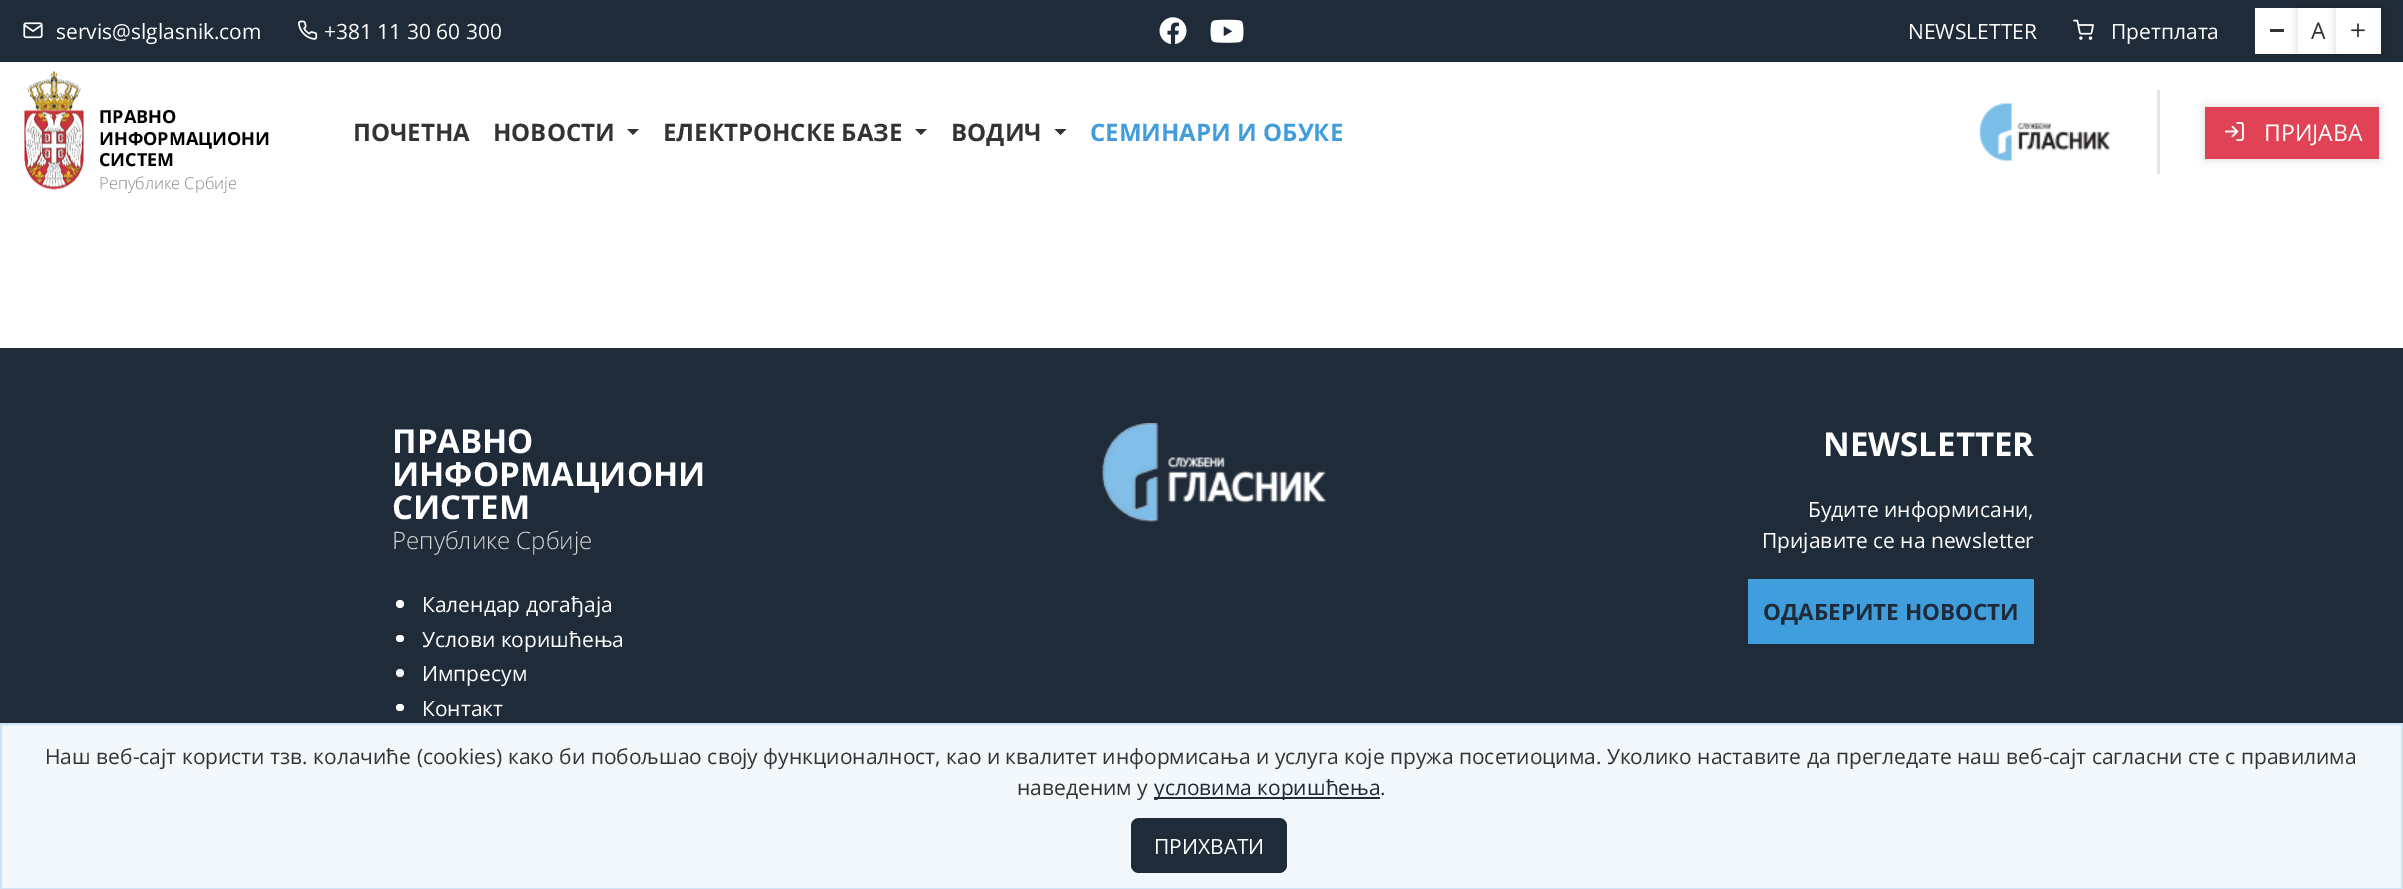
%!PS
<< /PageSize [2403 889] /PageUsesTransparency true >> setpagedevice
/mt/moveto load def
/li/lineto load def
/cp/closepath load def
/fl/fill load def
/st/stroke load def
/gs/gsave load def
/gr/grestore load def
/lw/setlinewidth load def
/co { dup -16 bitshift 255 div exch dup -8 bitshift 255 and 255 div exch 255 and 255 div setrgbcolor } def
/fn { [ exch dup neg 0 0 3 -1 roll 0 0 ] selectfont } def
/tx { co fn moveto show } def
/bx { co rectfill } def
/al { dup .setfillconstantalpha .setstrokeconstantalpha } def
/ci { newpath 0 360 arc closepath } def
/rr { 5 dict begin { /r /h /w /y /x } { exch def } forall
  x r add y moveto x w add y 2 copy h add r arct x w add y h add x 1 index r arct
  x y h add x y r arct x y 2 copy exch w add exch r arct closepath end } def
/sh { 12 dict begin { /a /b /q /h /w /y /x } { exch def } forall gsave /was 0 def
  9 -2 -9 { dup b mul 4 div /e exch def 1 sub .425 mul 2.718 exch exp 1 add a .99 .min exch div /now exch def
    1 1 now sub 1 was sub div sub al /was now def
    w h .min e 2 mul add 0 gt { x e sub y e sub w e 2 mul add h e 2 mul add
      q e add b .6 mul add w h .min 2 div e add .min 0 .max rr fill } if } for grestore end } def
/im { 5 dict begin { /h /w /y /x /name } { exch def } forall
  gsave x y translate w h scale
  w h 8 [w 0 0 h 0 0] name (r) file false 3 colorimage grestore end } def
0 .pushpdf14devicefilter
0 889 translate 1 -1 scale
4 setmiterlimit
0 0 2403 889 16#FFFFFF bx
0 0 2403 62 16#1F2B38 bx
(media/1.raw) 23 22 20 17 im
(media/2.raw) 298 20 20 20 im
(media/3.raw) 1159 17 28 27 im
(media/4.raw) 1210 19 34 24 im
(media/5.raw) 2073 19 21 21 im
2255 8 43 46 16#FFFFFF bx
2270 29 14 3 16#333333 bx
16#000000 co
2298 8 39 46 0 4.5 .16 sh
2298 8 38 46 16#FFFFFF bx
16#000000 co
2336 8 45 46 0 4.5 .16 sh
2336 8 45 46 16#FFFFFF bx
(media/6.raw) 2351 23 14 15 im
(media/7.raw) 24 71 60 119 im
16#333333 co
627 129 mt 639 129 li 633 135 li cp fl
915 129 mt 927 129 li 921 135 li cp fl
1054.5 129 mt 1066.5 129 li 1060.5 135 li cp fl
(media/8.raw) 1979 103 132 58 im
2157 90 3 84 16#E4E5E6 bx
16#000000 co
2205 107 174 52 0 4.5 .16 sh
2205 107 174 52 16#E14356 bx
(media/9.raw) 2224 122 20 19 im
0 348 2403 375 16#1F2B38 bx
16#FFFFFF co
400 604 4 ci fl
396 635 8 7 3.5 rr fl
400 673 4 ci fl
396 704 8 7 3.5 rr fl
(media/10.raw) 1102 423 224 99 im
1748 579 286 65 16#409EDC bx
16#F3F8FC co
1 724 mt 2402 724 li 2402 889 li 1 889 li cp gs fl gr
16#CFE3F4 co
2 lw
st
1154 797 226 2 16#1F2B38 bx
1131 818 156 55 8 rr fl
(servis@slglasnik.com) 56 39 /OpenSans-Regular 21 16#FFFFFF tx
(+381 11 30 60 300) 324 39 /OpenSans-Regular 21 16#FFFFFF tx
(NEWSLETTER) 1908 39 /OpenSans-Regular 21 16#FFFFFF tx
(Претплата) 2111 39 /OpenSans-Regular 21 16#FFFFFF tx
(A) 2311 39 /OpenSans-Regular 23 16#333333 tx
(ПРАВНО) 99 123 /OpenSans-Bold 18 16#000000 tx
(ИНФОРМАЦИОНИ) 99 145 /OpenSans-Bold 18 16#000000 tx
(СИСТЕМ) 99 166 /OpenSans-Bold 18 16#000000 tx
(Републике Србије) 99 189 /OpenSans-Light 16.5 16#888888 tx
(ПОЧЕТНА) 353 141 /OpenSans-Bold 24 16#333333 tx
(НОВОСТИ) 493 141 /OpenSans-Bold 24 16#333333 tx
(ЕЛЕКТРОНСКЕ БАЗЕ) 663 141 /OpenSans-Bold 24 16#333333 tx
(ВОДИЧ) 951 141 /OpenSans-Bold 24 16#333333 tx
(СЕМИНАРИ И ОБУКЕ) 1090 141 /OpenSans-Bold 24 16#429DDC tx
(ПРИЈАВА) 2264 141 /OpenSans-Regular 23 16#FFFFFF tx
(ПРАВНО) 392 453 /OpenSans-Bold 33 16#FFFFFF tx
(ИНФОРМАЦИОНИ) 392 486 /OpenSans-Bold 33 16#FFFFFF tx
(СИСТЕМ) 392 519 /OpenSans-Bold 33 16#FFFFFF tx
(Републике Србије) 392 549 /OpenSans-Light 24 16#D8D8D8 tx
(Календар догађаја) 422 612 /OpenSans-Regular 21 16#FFFFFF tx
(Услови коришћења) 422 647 /OpenSans-Regular 21 16#FFFFFF tx
(Импресум) 422 681 /OpenSans-Regular 21 16#FFFFFF tx
(Контакт) 422 716 /OpenSans-Regular 21 16#FFFFFF tx
(NEWSLETTER) 1823 456 /OpenSans-Bold 33 16#FFFFFF tx
(Будите информисани,) 1808 517 /OpenSans-Regular 21 16#FFFFFF tx
(Пријавите се на newsletter) 1762 548 /OpenSans-Regular 21 16#FFFFFF tx
(ОДАБЕРИТЕ НОВОСТИ) 1763 620 /OpenSans-Bold 22.5 16#1F2B38 tx
(Наш веб-сајт користи тзв. колачиће \(cookies\) како би побољшао своју функционалност, као и квалитет информисања и услуга које пружа посетиоцима. Уколико наставите да прегледате наш веб-сајт сагласни сте с правилима) 45 764 /OpenSans-Regular 21 16#333333 tx
(наведеним у) 1017 795 /OpenSans-Regular 21 16#333333 tx
(условима коришћења) 1154 795 /OpenSans-Regular 21 16#1F2B38 tx
(.) 1380 795 /OpenSans-Regular 21 16#333333 tx
(ПРИХВАТИ) 1154 854 /OpenSans-Regular 21 16#FFFFFF tx
.poppdf14devicefilter showpage
